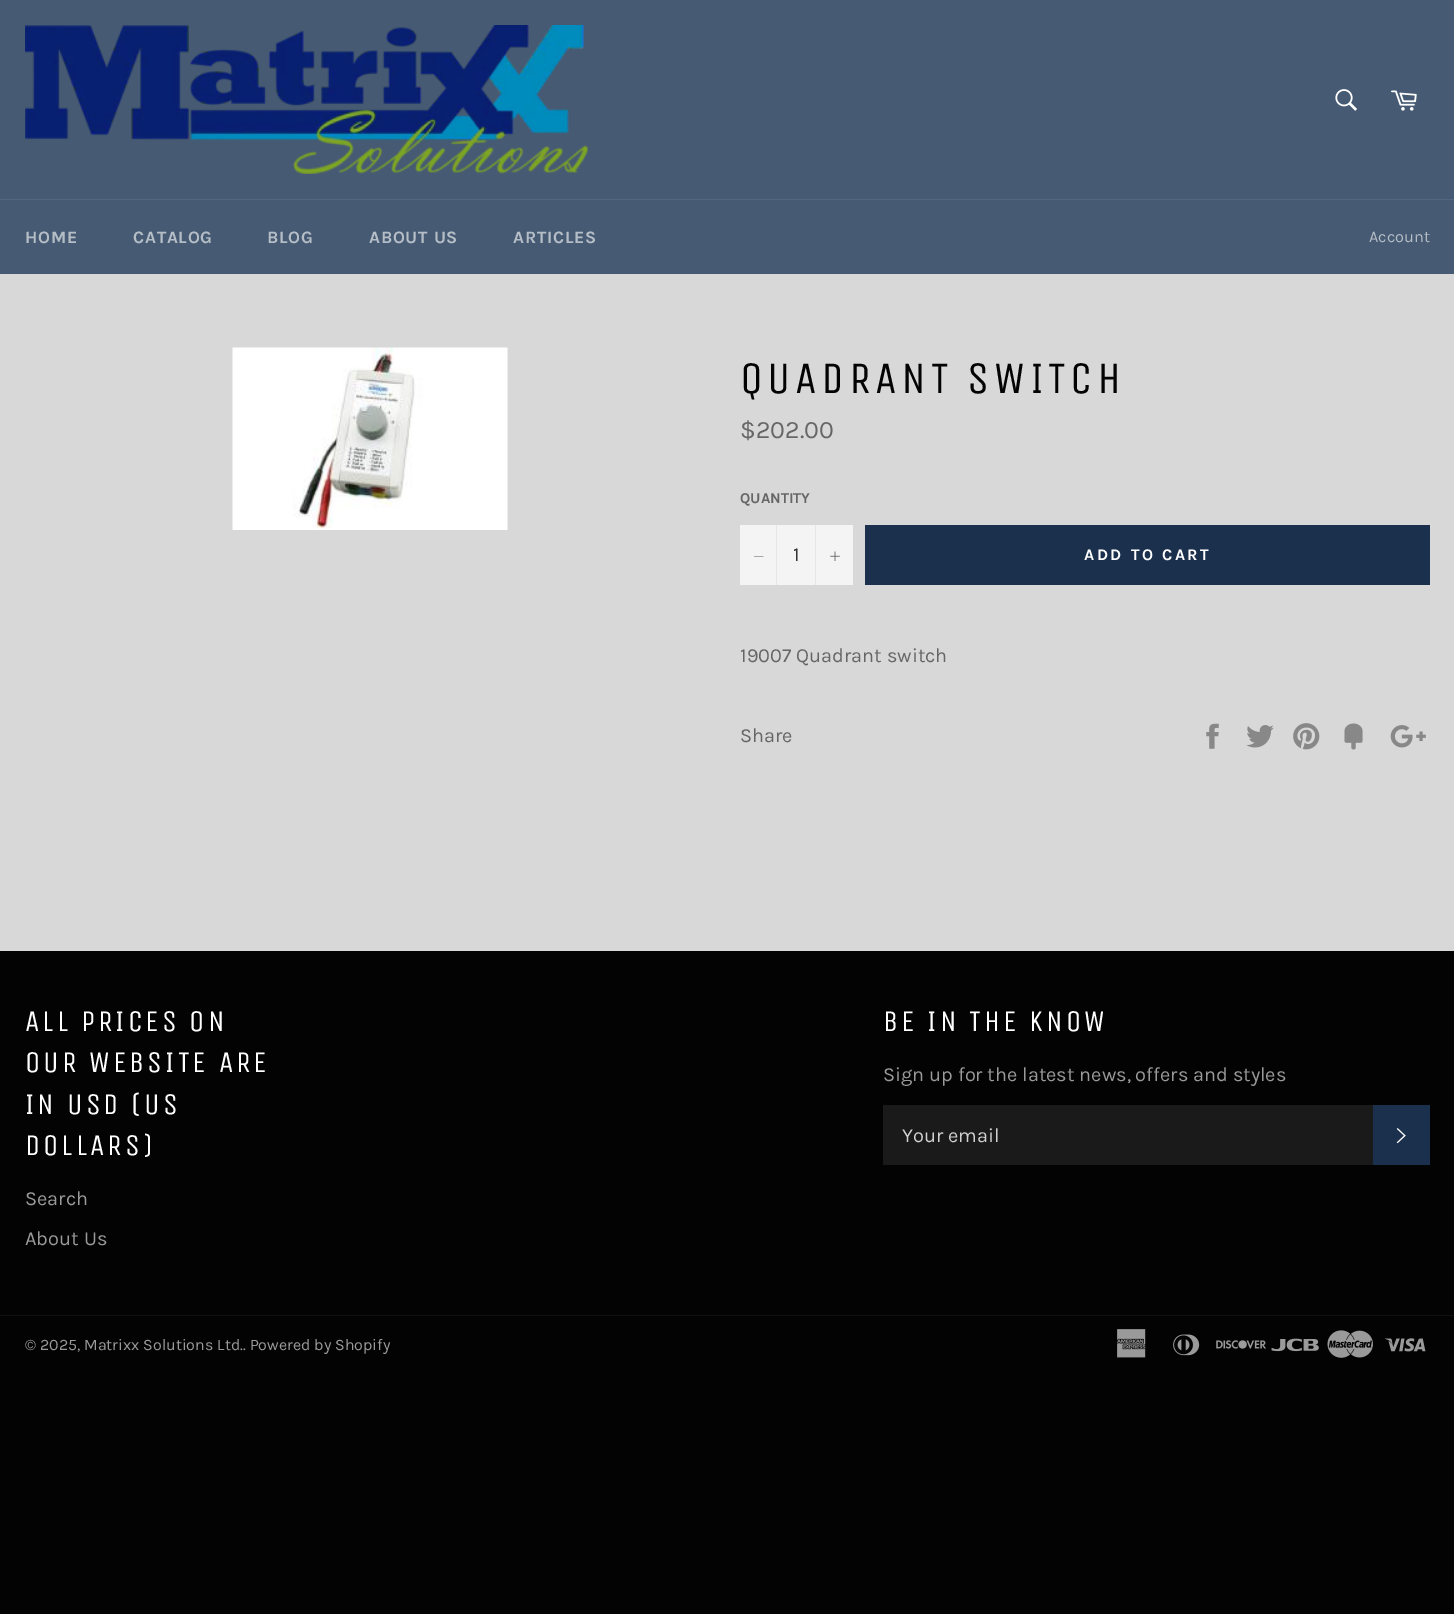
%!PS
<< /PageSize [1454 1614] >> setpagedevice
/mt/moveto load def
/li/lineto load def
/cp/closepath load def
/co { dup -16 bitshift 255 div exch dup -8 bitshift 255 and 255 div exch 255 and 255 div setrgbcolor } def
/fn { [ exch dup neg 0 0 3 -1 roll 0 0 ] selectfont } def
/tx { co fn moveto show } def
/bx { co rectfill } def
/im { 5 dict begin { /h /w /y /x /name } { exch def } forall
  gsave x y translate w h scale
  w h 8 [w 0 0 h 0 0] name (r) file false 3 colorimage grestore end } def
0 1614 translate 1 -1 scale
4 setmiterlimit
0 0 1454 1614 16#030303 bx
0 274 1454 677 16#D8D8D8 bx
0 0 1454 199 16#465B73 bx
(media/1.raw) 25 25 563 149 im
(media/2.raw) 1335 89 22 22 im
(media/3.raw) 1391 90 26 21 im
0 200 1454 74 16#465B73 bx
0 199 1454 1 16#506883 bx
(media/4.raw) 232 347 276 183 im
740 525 113 60 16#F4F4F4 bx
776 525 1 60 16#E7E7E7 bx
16#666666 co
763.5 556 mt 763.5 556.5 li 754 556.5 li 754 556 li cp eofill
815 525 1 60 16#E7E7E7 bx
(media/5.raw) 830 551 10 10 im
865 525 565 60 16#1A304D bx
(media/6.raw) 1206 723 13 26 im
(media/7.raw) 1246 725 28 23 im
(media/8.raw) 1293 723 27 27 im
(media/9.raw) 1344 723 19 27 im
(media/10.raw) 1390 725 36 23 im
883 1105 490 60 16#1A1A1A bx
1373 1105 57 60 16#1A304D bx
(media/11.raw) 1396 1128 10 16 im
0 1315 1454 1 16#101010 bx
(media/12.raw) 1117 1329 29 29 im
(media/13.raw) 1173 1334 27 22 im
(media/14.raw) 1216 1340 50 9 im
(media/15.raw) 1271 1338 48 14 im
(media/16.raw) 1327 1330 46 28 im
(media/17.raw) 1384 1338 42 14 im
/Karla-Bold 17.5 fn
16#B5BDC7 co
25 243 mt .75 0 (HOME) ashow
133 243 mt .75 0 (CATALOG) ashow
267 243 mt .75 0 (BLOG) ashow
369 243 mt .75 0 (ABOUT US) ashow
513 243 mt .75 0 (ARTICLES) ashow
(Account) 1369 242 /Karla-Regular 16.25 16#B5BDC7 tx
/UnicaOne-Regular 45 fn
16#030303 co
740 393 mt 4.5 0 (QUADRANT SWITCH) ashow
($202.00) 740 438 /Karla-Regular 25 16#666666 tx
(QUANTITY) 740 503 /Karla-Bold 15 16#666666 tx
(1) 793 561 /Karla-Regular 20 16#333333 tx
/Karla-Bold 16.25 fn
16#FFFFFF co
1084 560 mt 2.5 0 (ADD TO CART) ashow
(19007 Quadrant switch) 740 662 /Karla-Regular 20 16#666666 tx
(Share) 740 742 /Karla-Regular 20 16#666666 tx
/UnicaOne-Regular 30 fn
16#FFFFFF co
25 1031 mt 3 0 (ALL PRICES ON) ashow
25 1072 mt 3 0 (OUR WEBSITE ARE) ashow
25 1114 mt 3 0 (IN USD \(US) ashow
25 1155 mt 3 0 (DOLLARS\)) ashow
(Search) 25 1205 /Karla-Regular 20 16#9A9A9A tx
(About Us) 25 1245 /Karla-Regular 20 16#9A9A9A tx
/UnicaOne-Regular 30 fn
16#FFFFFF co
883 1031 mt 3 0 (BE IN THE KNOW) ashow
(Sign up for the latest news, offers and styles) 883 1081 /Karla-Regular 20 16#9A9A9A tx
(Your email) 902 1142 /Karla-Regular 20 16#D1D1D1 tx
(© 2025, Matrixx Solutions Ltd.. Powered by Shopify) 25 1350 /Karla-Regular 16 16#9A9A9A tx
showpage
